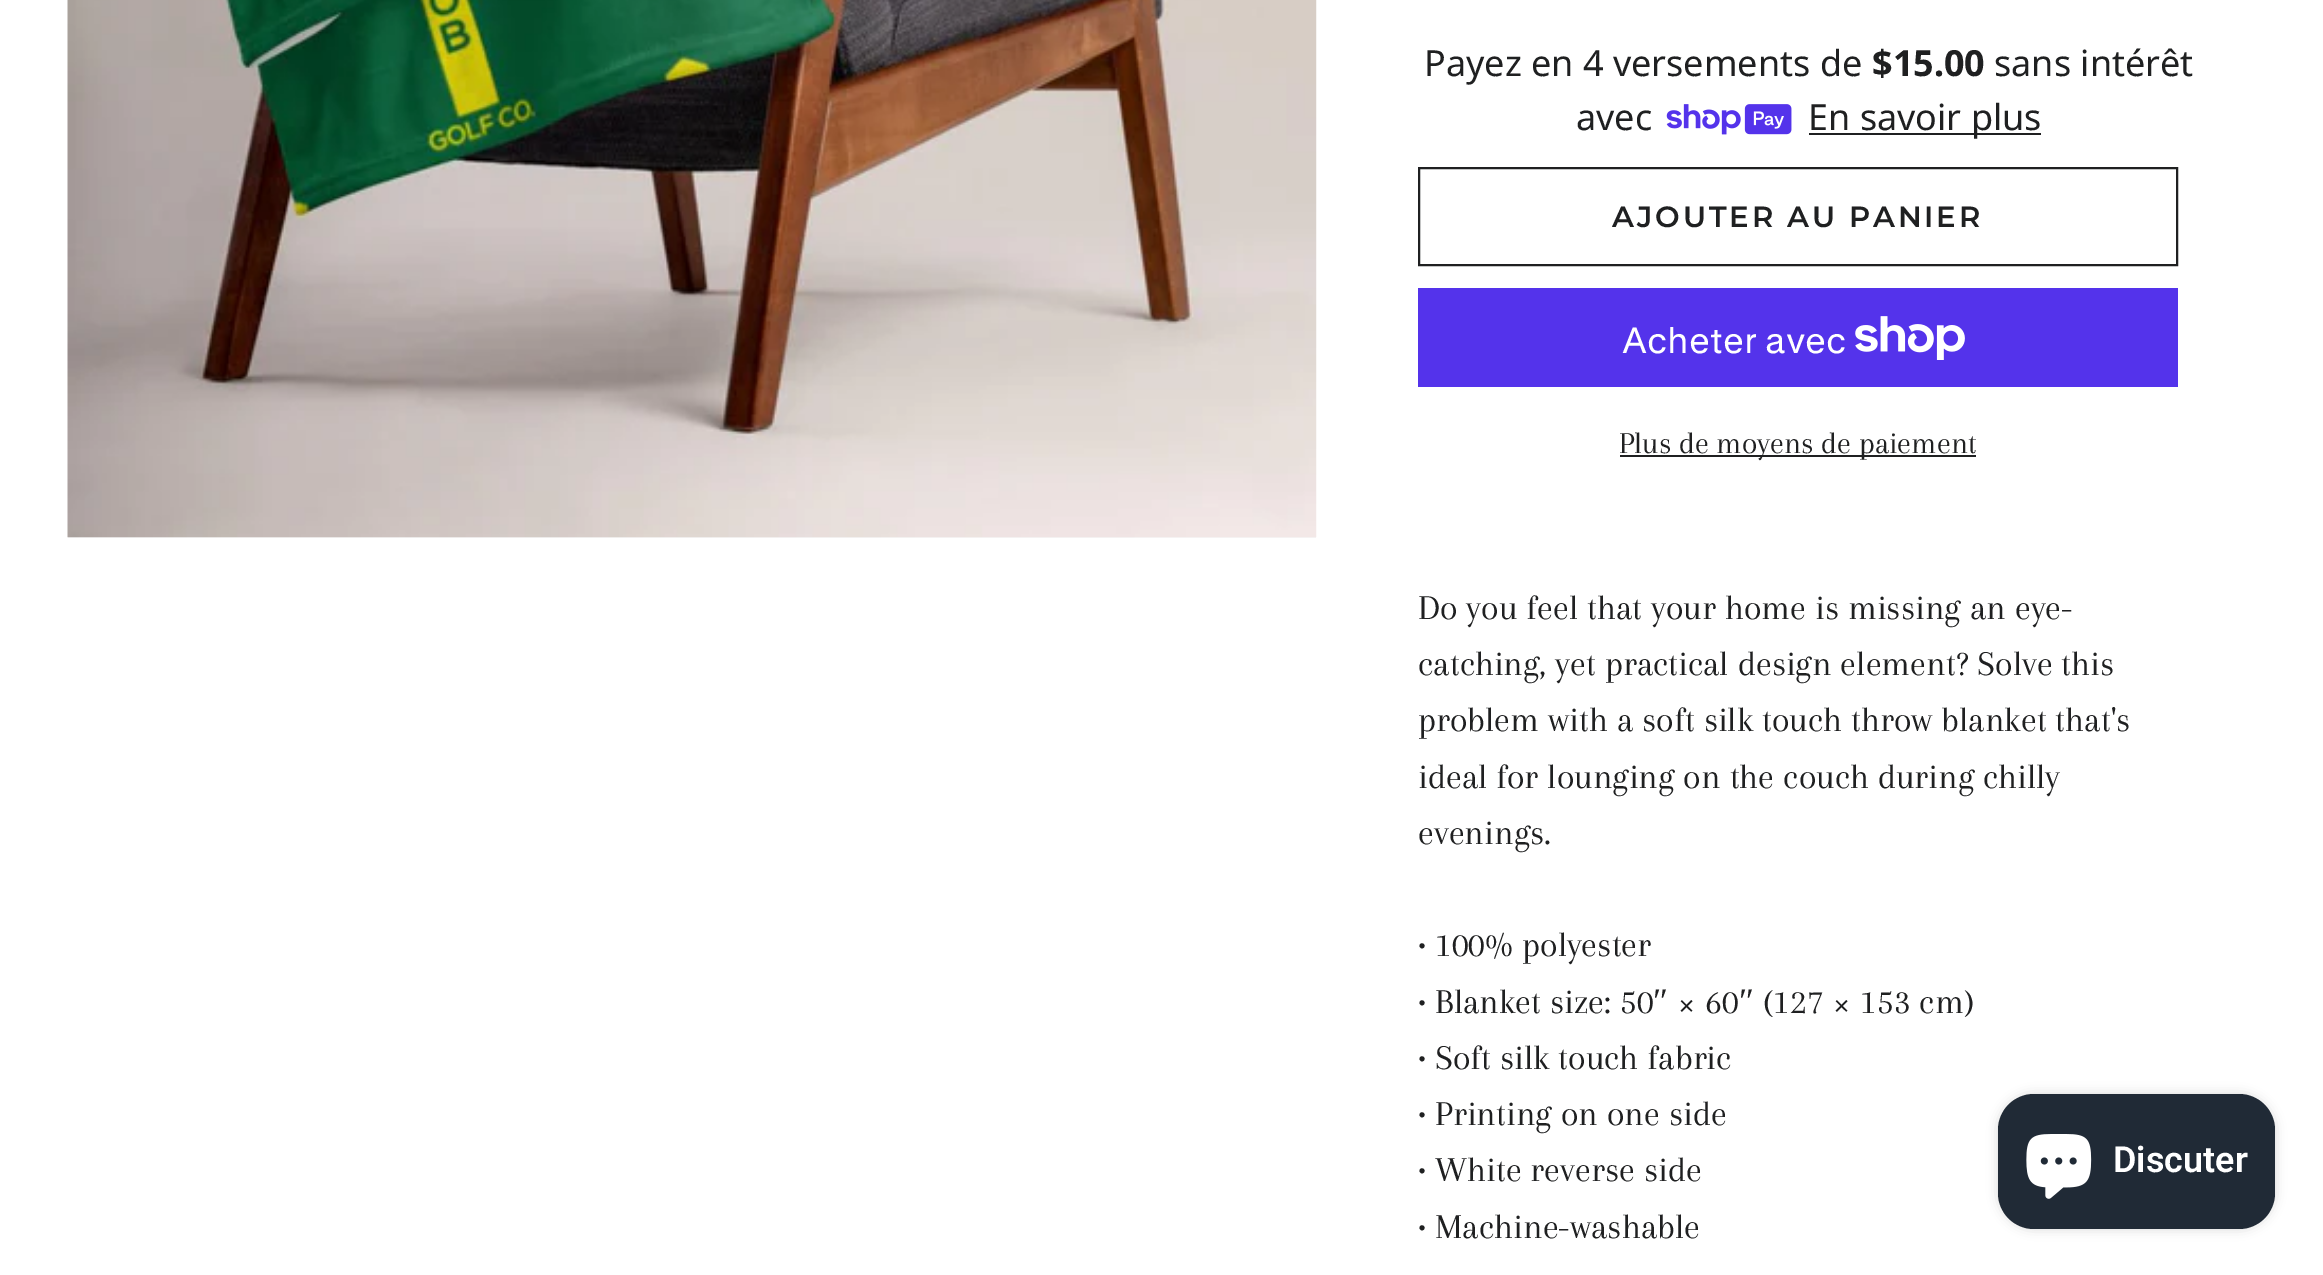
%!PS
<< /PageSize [2323 1275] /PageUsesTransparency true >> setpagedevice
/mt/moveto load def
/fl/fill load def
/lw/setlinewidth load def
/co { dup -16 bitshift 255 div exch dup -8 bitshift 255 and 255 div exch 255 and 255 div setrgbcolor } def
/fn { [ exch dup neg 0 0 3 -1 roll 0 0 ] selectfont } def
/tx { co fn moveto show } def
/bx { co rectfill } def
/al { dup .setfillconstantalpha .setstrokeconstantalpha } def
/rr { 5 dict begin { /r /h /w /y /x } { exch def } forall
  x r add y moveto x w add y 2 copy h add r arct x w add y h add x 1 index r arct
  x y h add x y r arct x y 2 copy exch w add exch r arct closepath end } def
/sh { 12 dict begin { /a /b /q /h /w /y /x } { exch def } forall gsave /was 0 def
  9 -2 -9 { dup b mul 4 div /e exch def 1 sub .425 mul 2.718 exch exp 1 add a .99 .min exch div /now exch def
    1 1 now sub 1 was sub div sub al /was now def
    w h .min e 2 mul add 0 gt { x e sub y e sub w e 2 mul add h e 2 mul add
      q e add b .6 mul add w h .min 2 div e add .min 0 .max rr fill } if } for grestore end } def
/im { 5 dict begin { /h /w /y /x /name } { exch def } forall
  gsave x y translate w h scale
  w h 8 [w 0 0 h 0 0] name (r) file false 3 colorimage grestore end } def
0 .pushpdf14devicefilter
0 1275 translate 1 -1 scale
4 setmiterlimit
0 0 2323 1275 16#FFFFFF bx
68 537 1248 1 16#F6F6F6 bx
(media/1.raw) 67 0 1250 538 im
(media/2.raw) 1666 104 126 31 im
1809 133 232 2 16#1F2021 bx
2 lw
1419 168 758 97 rectstroke
1418 288 760 99 16#5433EB bx
(media/3.raw) 1855 316 110 44 im
1620 455 356 2 16#1F2021 bx
16#000000 co
1998 1094 277 135 36 5.5 .15 sh
16#202A36 co
1998 1094 277 135 36 rr fl
(media/4.raw) 2026 1134 66 65 im
(Payez en 4 versements de) 1424 76 /NotoSans-Regular 36 16#1F2021 tx
($15.00) 1872 76 /NotoSans-Bold 36 16#1F2021 tx
(sans intérêt) 1994 76 /NotoSans-Regular 36 16#1F2021 tx
(avec) 1576 130 /NotoSans-Regular 36 16#1F2021 tx
(En savoir plus) 1808 130 /NotoSans-Regular 36 16#1F2021 tx
/Montserrat-SemiBold 29.25 fn
1612 227 mt 2.9 0 (AJOUTER AU PANIER) ashow
(Acheter avec) 1622 353 /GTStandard-Regular 36 16#FFFFFF tx
(Plus de moyens de paiement) 1619 453 /Arapey-Regular 31.5 16#1F2021 tx
(Do you feel that your home is missing an eye-) 1418 619 /Arapey-Regular 36 16#1F2021 tx
(catching, yet practical design element? Solve this) 1418 675 /Arapey-Regular 36 16#1F2021 tx
(problem with a soft silk touch throw blanket that's) 1418 731 /Arapey-Regular 36 16#1F2021 tx
(ideal for lounging on the couch during chilly) 1418 788 /Arapey-Regular 36 16#1F2021 tx
(evenings.) 1418 844 /Arapey-Regular 36 16#1F2021 tx
(• 100% polyester) 1418 956 /Arapey-Regular 36 16#1F2021 tx
(• Blanket size: 50) 1418 1013 /Arapey-Regular 36 16#1F2021 tx
(″) 1653 1013 /LiberationSerif-Regular 36 16#1F2021 tx
(× 60) 1677 1013 /Arapey-Regular 36 16#1F2021 tx
(″) 1739 1013 /LiberationSerif-Regular 36 16#1F2021 tx
(\(127 × 153 cm\)) 1763 1013 /Arapey-Regular 36 16#1F2021 tx
(• Soft silk touch fabric) 1418 1069 /Arapey-Regular 36 16#1F2021 tx
(• Printing on one side) 1418 1125 /Arapey-Regular 36 16#1F2021 tx
(• White reverse side) 1418 1181 /Arapey-Regular 36 16#1F2021 tx
(• Machine-washable) 1418 1238 /Arapey-Regular 36 16#1F2021 tx
(Discuter) 2113 1172 /Roboto-SemiBold 36 16#FFFFFF tx
.poppdf14devicefilter showpage
